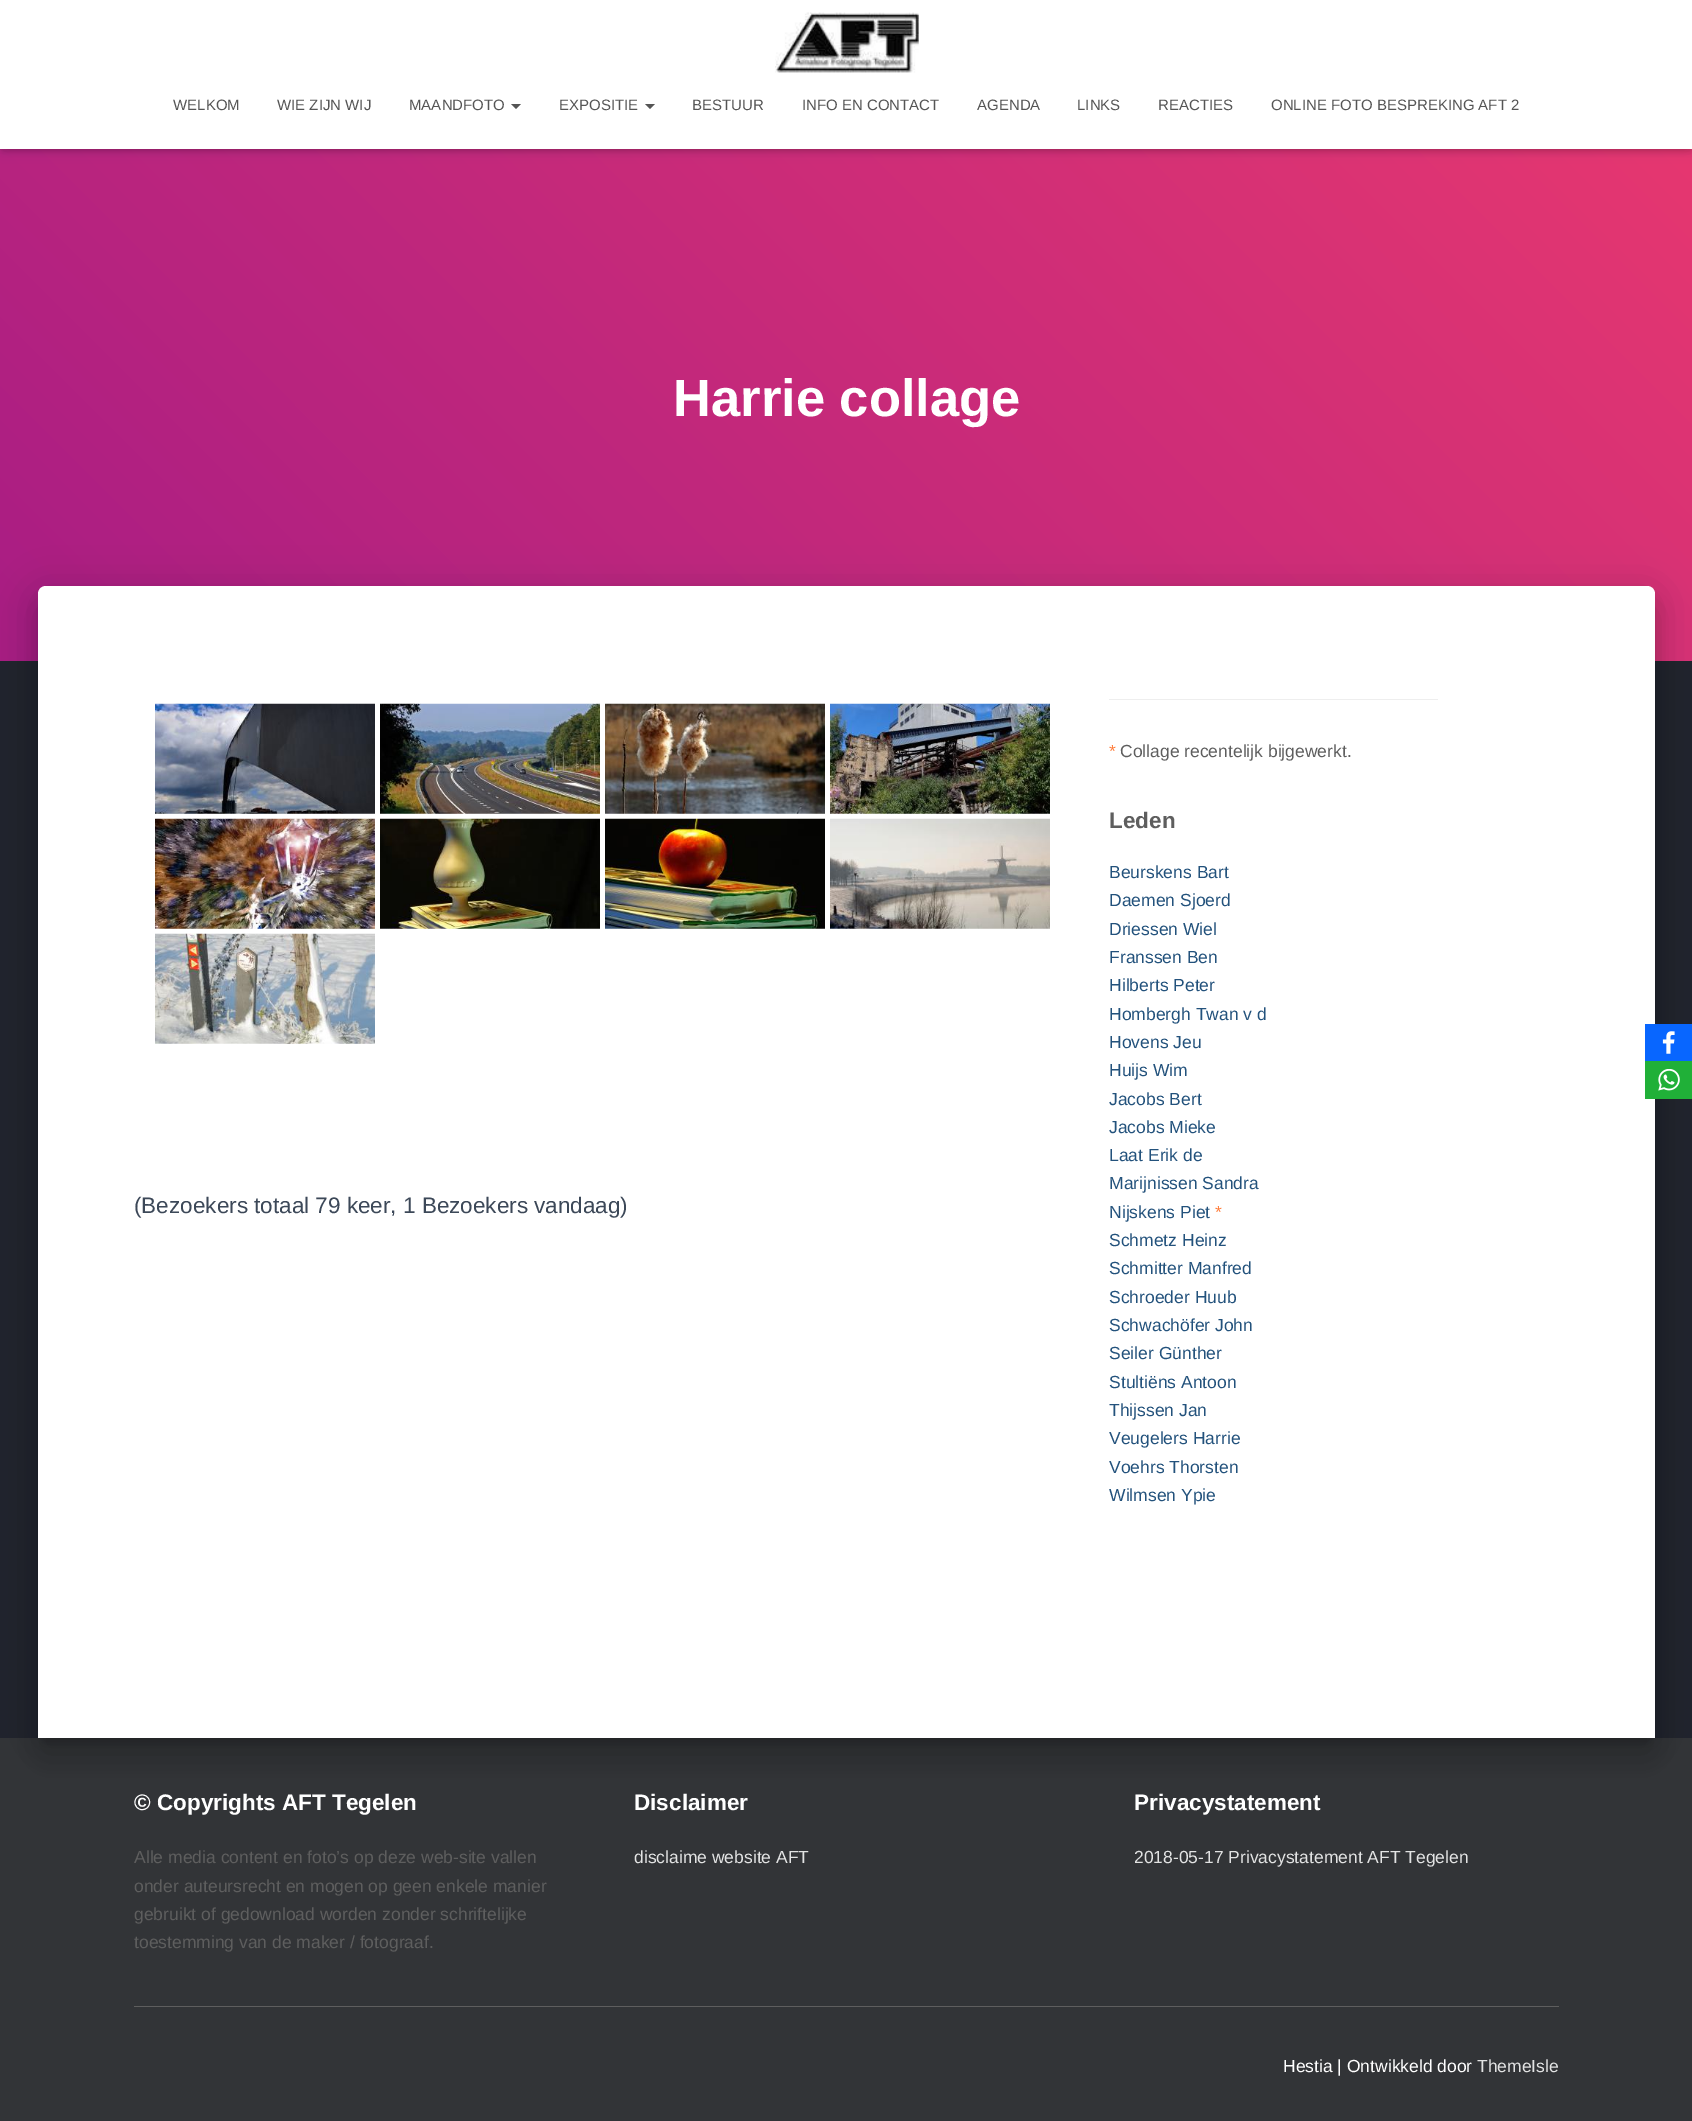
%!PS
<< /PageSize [1692 2121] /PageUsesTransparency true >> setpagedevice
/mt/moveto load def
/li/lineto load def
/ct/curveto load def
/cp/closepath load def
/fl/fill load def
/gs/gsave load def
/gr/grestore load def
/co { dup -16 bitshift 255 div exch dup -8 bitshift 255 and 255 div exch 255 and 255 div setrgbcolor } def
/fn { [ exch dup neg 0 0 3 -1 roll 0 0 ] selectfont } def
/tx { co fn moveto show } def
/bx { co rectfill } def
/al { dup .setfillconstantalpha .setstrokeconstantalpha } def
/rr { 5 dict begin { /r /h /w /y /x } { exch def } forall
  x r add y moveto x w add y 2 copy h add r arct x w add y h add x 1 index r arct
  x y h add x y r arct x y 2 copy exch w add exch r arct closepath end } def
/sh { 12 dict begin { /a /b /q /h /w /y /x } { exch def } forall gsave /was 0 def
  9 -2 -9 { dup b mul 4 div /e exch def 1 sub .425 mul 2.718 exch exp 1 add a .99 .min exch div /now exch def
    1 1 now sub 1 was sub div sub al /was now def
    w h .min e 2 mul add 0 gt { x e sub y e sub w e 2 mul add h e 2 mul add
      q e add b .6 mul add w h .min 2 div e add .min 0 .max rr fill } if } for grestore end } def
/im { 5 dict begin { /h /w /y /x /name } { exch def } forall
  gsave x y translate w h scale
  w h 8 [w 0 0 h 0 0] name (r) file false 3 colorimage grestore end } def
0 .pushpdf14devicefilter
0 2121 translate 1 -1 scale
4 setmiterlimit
0 0 1692 2121 16#20232D bx
gs 0 149 mt 1692 149 li 1692 661 li 0 661 li cp clip newpath
<< /ShadingType 2 /ColorSpace /DeviceRGB /Coords [258 919 1435 -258] /Extend [true true] /Function << /FunctionType 2 /Domain [0 1] /C0 [.659 .114 .518] /C1 [.918 .224 .435] /N 1 >> >> shfill gr
16#000000 co
3 8 1687 143 0 3 .1 sh
0 1 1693 149 0 6 .12 sh
8 9 1677 134 0 6 .42 sh
0 0 1692 149 16#FFFFFF bx
(media/1.raw) 775 12 144 61 im
16#555555 co
511 104 mt 521 104 li 516 109 li cp fl
645 104 mt 655 104 li 650 109 li cp fl
0 1738 1692 383 16#323437 bx
16#000000 co
44 603 1605 1138 1 6 .2 sh
31 588 1630 1163 14 19 .12 sh
35 604 1623 1156 10 15 .14 sh
16#FFFFFF co
46 586 mt 1647 586 li 1651.5 586 1655 589.5 1655 594 ct 1655 1738 li 38 1738 li 38 594 li 38 589.5 41.5 586 46 586 ct cp fl
(media/2.raw) 155 703 220 111 im
(media/3.raw) 380 703 220 111 im
(media/4.raw) 605 703 220 111 im
(media/5.raw) 830 703 220 111 im
(media/6.raw) 155 818 220 111 im
(media/7.raw) 380 818 220 111 im
(media/8.raw) 605 818 220 111 im
(media/9.raw) 830 818 220 111 im
(media/10.raw) 155 933 220 111 im
1109 699 329 1 16#EEEEEE bx
134 2006 1425 1 16#5E5E5E bx
1645 1024 47 37 16#0866FF bx
(media/11.raw) 1662 1031 13 23 im
1645 1061 47 38 16#20B038 bx
(media/12.raw) 1658 1069 22 22 im
(WELKOM) 173 110 /LiberationSans-Regular 15 16#555555 tx
(WIE ZIJN WIJ) 277 110 /LiberationSans-Regular 15 16#555555 tx
(MAANDFOTO) 409 110 /LiberationSans-Regular 15 16#555555 tx
(EXPOSITIE) 559 110 /LiberationSans-Regular 15 16#555555 tx
(BESTUUR) 692 110 /LiberationSans-Regular 15 16#555555 tx
(INFO EN CONTACT) 802 110 /LiberationSans-Regular 15 16#555555 tx
(AGENDA) 977 110 /LiberationSans-Regular 15 16#555555 tx
(LINKS) 1077 110 /LiberationSans-Regular 15 16#555555 tx
(REACTIES) 1158 110 /LiberationSans-Regular 15 16#555555 tx
(ONLINE FOTO BESPREKING AFT 2) 1271 110 /LiberationSans-Regular 15 16#555555 tx
(Harrie collage) 673 416 /LiberationSans-Bold 52.5 16#FFFFFF tx
(\(Bezoekers totaal 79 keer, 1 Bezoekers vandaag\)) 134 1213 /LiberationSans-Regular 22.5 16#3C4858 tx
(*) 1109 757 /LiberationSans-Regular 17.5 16#FF8040 tx
(Collage recentelijk bijgewerkt.) 1120 757 /LiberationSans-Regular 17.5 16#5E5E5E tx
(Leden) 1109 828 /LiberationSans-Bold 22.5 16#5E5E5E tx
(Beurskens Bart) 1109 878 /LiberationSans-Regular 17.5 16#23527C tx
(Daemen Sjoerd) 1109 906 /LiberationSans-Regular 17.5 16#23527C tx
(Driessen Wiel) 1109 935 /LiberationSans-Regular 17.5 16#23527C tx
(Franssen Ben) 1109 963 /LiberationSans-Regular 17.5 16#23527C tx
(Hilberts Peter) 1109 991 /LiberationSans-Regular 17.5 16#23527C tx
(Hombergh Twan v d) 1109 1020 /LiberationSans-Regular 17.5 16#23527C tx
(Hovens Jeu) 1109 1048 /LiberationSans-Regular 17.5 16#23527C tx
(Huijs Wim) 1109 1076 /LiberationSans-Regular 17.5 16#23527C tx
(Jacobs Bert) 1109 1105 /LiberationSans-Regular 17.5 16#23527C tx
(Jacobs Mieke) 1109 1133 /LiberationSans-Regular 17.5 16#23527C tx
(Laat Erik de) 1109 1161 /LiberationSans-Regular 17.5 16#23527C tx
(Marijnissen Sandra) 1109 1189 /LiberationSans-Regular 17.5 16#23527C tx
(Nijskens Piet) 1109 1218 /LiberationSans-Regular 17.5 16#23527C tx
(*) 1215 1218 /LiberationSans-Regular 17.5 16#FF8040 tx
(Schmetz Heinz) 1109 1246 /LiberationSans-Regular 17.5 16#23527C tx
(Schmitter Manfred) 1109 1274 /LiberationSans-Regular 17.5 16#23527C tx
(Schroeder Huub) 1109 1303 /LiberationSans-Regular 17.5 16#23527C tx
(Schwachöfer John) 1109 1331 /LiberationSans-Regular 17.5 16#23527C tx
(Seiler Günther) 1109 1359 /LiberationSans-Regular 17.5 16#23527C tx
(Stultiëns Antoon) 1109 1388 /LiberationSans-Regular 17.5 16#23527C tx
(Thijssen Jan) 1109 1416 /LiberationSans-Regular 17.5 16#23527C tx
(Veugelers Harrie) 1109 1444 /LiberationSans-Regular 17.5 16#23527C tx
(Voehrs Thorsten) 1109 1473 /LiberationSans-Regular 17.5 16#23527C tx
(Wilmsen Ypie) 1109 1501 /LiberationSans-Regular 17.5 16#23527C tx
(© Copyrights AFT Tegelen) 134 1810 /LiberationSans-Bold 22.5 16#FFFFFF tx
(Alle media content en foto’s op deze web-site vallen) 134 1863 /LiberationSans-Regular 17.5 16#5E5E5E tx
(onder auteursrecht en mogen op geen enkele manier) 134 1892 /LiberationSans-Regular 17.5 16#5E5E5E tx
(gebruikt of gedownload worden zonder schriftelijke) 134 1920 /LiberationSans-Regular 17.5 16#5E5E5E tx
(toestemming van de maker / fotograaf.) 134 1948 /LiberationSans-Regular 17.5 16#5E5E5E tx
(Disclaimer) 634 1810 /LiberationSans-Bold 22.5 16#FFFFFF tx
(disclaime website AFT) 634 1863 /LiberationSans-Regular 17.5 16#E2E3E3 tx
(Privacystatement) 1134 1810 /LiberationSans-Bold 22.5 16#FFFFFF tx
(2018-05-17 Privacystatement AFT Tegelen) 1134 1863 /LiberationSans-Regular 17.5 16#E2E3E3 tx
(Hestia | Ontwikkeld door) 1283 2072 /LiberationSans-Regular 17.5 16#FFFFFF tx
(ThemeIsle) 1477 2072 /LiberationSans-Regular 17.5 16#E2E3E3 tx
.poppdf14devicefilter showpage
